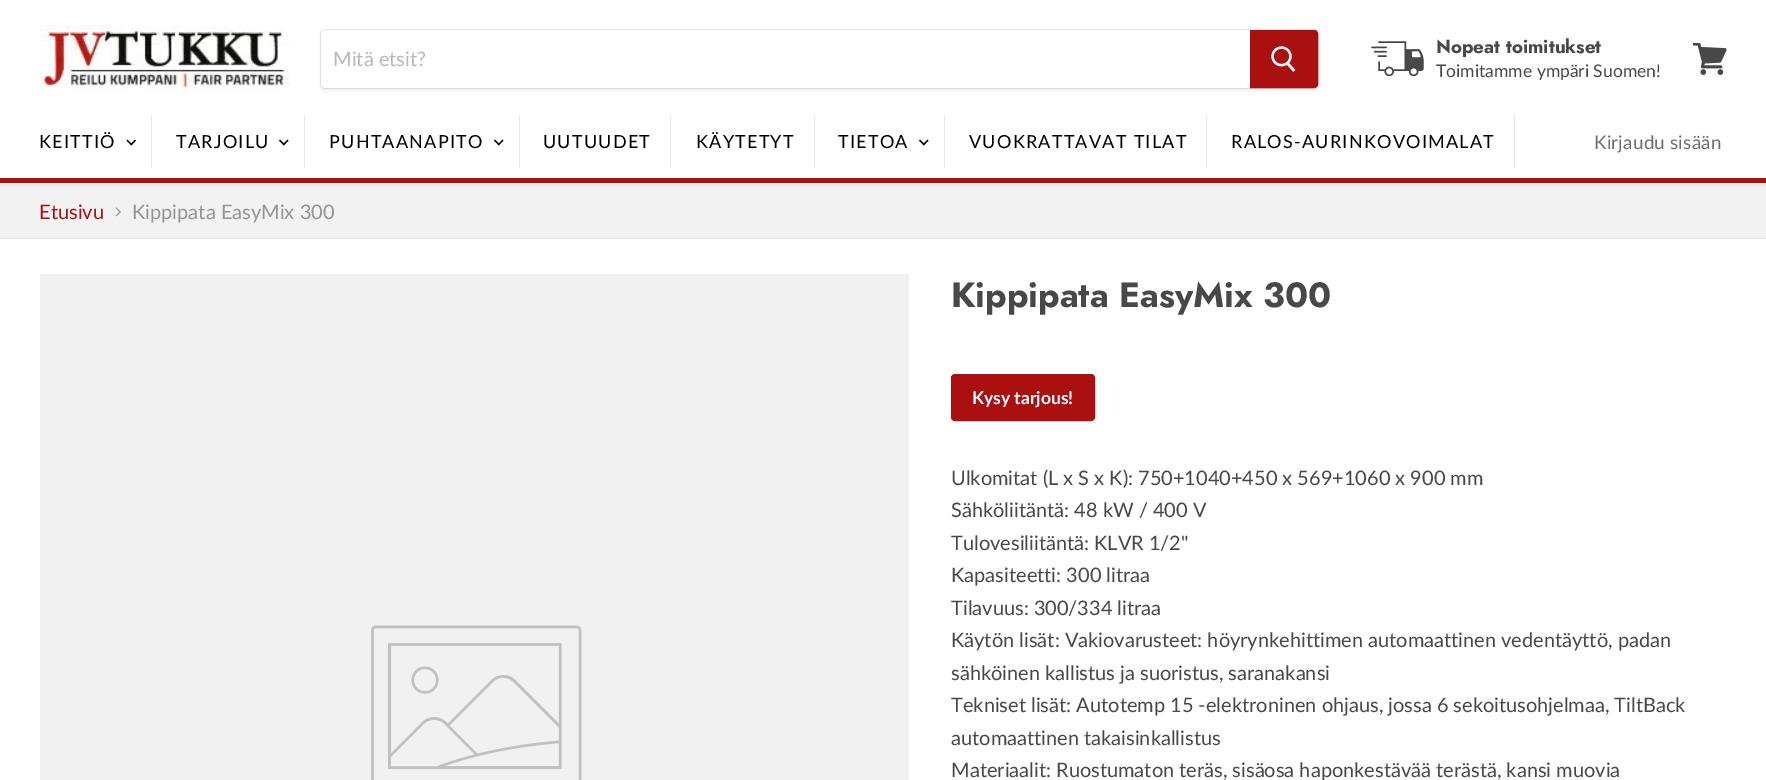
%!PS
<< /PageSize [1766 780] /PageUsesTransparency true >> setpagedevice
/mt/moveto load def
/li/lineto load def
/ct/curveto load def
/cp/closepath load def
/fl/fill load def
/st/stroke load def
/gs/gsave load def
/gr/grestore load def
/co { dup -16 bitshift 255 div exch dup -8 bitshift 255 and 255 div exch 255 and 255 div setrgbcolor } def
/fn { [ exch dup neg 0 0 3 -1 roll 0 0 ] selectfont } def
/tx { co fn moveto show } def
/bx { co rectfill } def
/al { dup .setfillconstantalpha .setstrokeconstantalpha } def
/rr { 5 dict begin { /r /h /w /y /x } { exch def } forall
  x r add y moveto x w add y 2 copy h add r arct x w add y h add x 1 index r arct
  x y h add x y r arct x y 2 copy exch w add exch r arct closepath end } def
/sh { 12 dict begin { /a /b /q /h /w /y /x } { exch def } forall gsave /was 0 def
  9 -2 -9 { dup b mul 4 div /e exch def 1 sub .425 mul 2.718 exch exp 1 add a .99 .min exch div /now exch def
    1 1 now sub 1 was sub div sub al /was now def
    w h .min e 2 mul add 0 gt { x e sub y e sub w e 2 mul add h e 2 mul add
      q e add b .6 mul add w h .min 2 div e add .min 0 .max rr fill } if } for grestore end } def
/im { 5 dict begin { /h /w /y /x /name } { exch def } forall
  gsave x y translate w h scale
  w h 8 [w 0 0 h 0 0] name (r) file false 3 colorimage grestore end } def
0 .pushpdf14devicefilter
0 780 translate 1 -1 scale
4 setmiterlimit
0 0 1766 780 16#FFFFFF bx
0 183 1766 55 16#F2F2F2 bx
16#808080 co
0 1 1766 183 0 2.5 .25 sh
0 0 1766 178 16#FFFFFF bx
(media/1.raw) 40 25 250 68 im
16#808080 co
320 31 999 60 5 2 .11 sh
0.2 al
320.5 29.5 998 59 4.5 rr st
1 al
16#FFFFFF co
325 30 mt 1250 30 li 1250 88 li 325 88 li 323 88 321 86 321 84 ct 321 34 li 321 32 323 30 325 30 ct cp fl
16#AB1010 co
1250.5 30.5 mt 1314 30.5 li 1316 30.5 1317.5 32 1317.5 34 ct 1317.5 84 li 1317.5 86 1316 87.5 1314 87.5 ct 1250.5 87.5 li cp gs fl gr
st
(media/2.raw) 1271 46 25 26 im
(media/3.raw) 1371 41 53 35 im
(media/4.raw) 1693 43 34 32 im
0 178 1766 5 16#AB1010 bx
151 115 1 53 16#E4E4E4 bx
(media/5.raw) 126 139 10 7 im
304 115 1 53 16#E4E4E4 bx
(media/6.raw) 279 139 10 7 im
519 115 1 53 16#E4E4E4 bx
(media/6.raw) 494 139 10 7 im
670 115 1 53 16#E4E4E4 bx
814 115 1 53 16#E4E4E4 bx
944 115 1 53 16#E4E4E4 bx
(media/6.raw) 919 139 10 7 im
1206 115 1 53 16#E4E4E4 bx
1514 115 1 53 16#E4E4E4 bx
0 238 1766 1 16#E4E4E4 bx
(media/7.raw) 115 207 6 10 im
40 274 869 506 16#F1F1F1 bx
(media/8.raw) 371 625 211 155 im
16#AB1010 co
951.5 374.5 143 46 3.5 rr gs fl gr
st
(Mitä etsit?) 333 66 /Lato-Regular 20 16#B8B8B8 tx
(Nopeat toimitukset) 1436 53 /Jost-Bold 18.75 16#484848 tx
(Toimitamme ympäri Suomen!) 1436 77 /Lato-Regular 17.5 16#484848 tx
/Lato-Regular 18 fn
16#000000 co
39 148 mt 1.25 0 (KEITTIÖ) ashow
176 148 mt 1.25 0 (TARJOILU) ashow
329 148 mt 1.25 0 (PUHTAANAPITO) ashow
543 148 mt 1.25 0 (UUTUUDET) ashow
696 148 mt 1.25 0 (KÄYTETYT) ashow
838 148 mt 1.25 0 (TIETOA) ashow
969 148 mt 1.25 0 (VUOKRATTAVAT TILAT) ashow
1231 148 mt 1.25 0 (RALOS-AURINKOVOIMALAT) ashow
/Lato-Regular 18.75 fn
16#6D6D6D co
1594 149 mt .25 0 (Kirjaudu sisään) ashow
(Etusivu) 39 219 /Lato-Regular 20 16#AB1010 tx
(Kippipata EasyMix 300) 132 219 /Lato-Regular 20 16#949494 tx
(Kippipata EasyMix 300) 951 307 /Jost-Bold 35 16#484848 tx
(Kysy tarjous!) 972 404 /Lato-Bold 17.5 16#FFFFFF tx
(Ulkomitat \(L x S x K\): 750+1040+450 x 569+1060 x 900 mm) 951 485 /Lato-Regular 20 16#484848 tx
(Sähköliitäntä: 48 kW / 400 V) 951 517 /Lato-Regular 20 16#484848 tx
(Tulovesiliitäntä: KLVR 1/2") 951 550 /Lato-Regular 20 16#484848 tx
(Kapasiteetti: 300 litraa) 951 582 /Lato-Regular 20 16#484848 tx
(Tilavuus: 300/334 litraa) 951 615 /Lato-Regular 20 16#484848 tx
(Käytön lisät: Vakiovarusteet: höyrynkehittimen automaattinen vedentäyttö, padan) 951 647 /Lato-Regular 20 16#484848 tx
(sähköinen kallistus ja suoristus, saranakansi) 951 680 /Lato-Regular 20 16#484848 tx
(Tekniset lisät: Autotemp 15 -elektroninen ohjaus, jossa 6 sekoitusohjelmaa, TiltBack) 951 712 /Lato-Regular 20 16#484848 tx
(automaattinen takaisinkallistus) 951 745 /Lato-Regular 20 16#484848 tx
(Materiaalit: Ruostumaton teräs, sisäosa haponkestävää terästä, kansi muovia) 951 777 /Lato-Regular 20 16#484848 tx
.poppdf14devicefilter showpage
